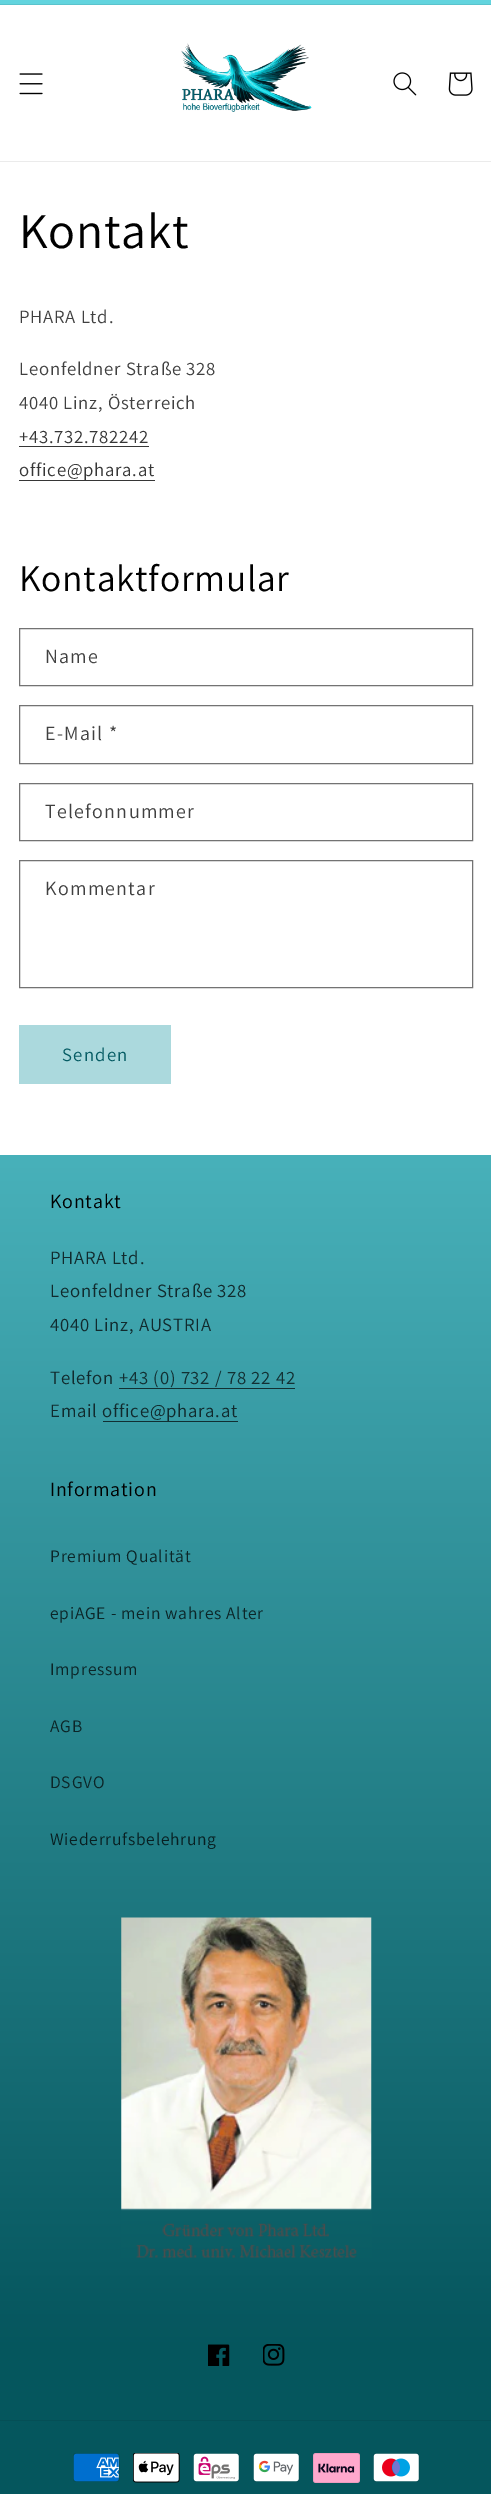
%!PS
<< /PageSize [491 2494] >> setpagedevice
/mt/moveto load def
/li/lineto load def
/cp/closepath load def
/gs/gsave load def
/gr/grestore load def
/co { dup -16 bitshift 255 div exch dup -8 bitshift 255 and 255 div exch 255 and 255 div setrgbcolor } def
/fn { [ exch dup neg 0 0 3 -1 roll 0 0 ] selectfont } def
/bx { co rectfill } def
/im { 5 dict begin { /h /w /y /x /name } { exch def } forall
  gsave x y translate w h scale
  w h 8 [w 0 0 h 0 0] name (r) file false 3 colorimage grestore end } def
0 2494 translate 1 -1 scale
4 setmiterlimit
0 0 491 2494 16#FFFFFF bx
gs 0 0 mt 491 0 li 491 4 li 0 4 li cp clip newpath
<< /ShadingType 2 /ColorSpace /DeviceRGB /Coords [246 0 246 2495] /Extend [true true] /Function << /FunctionType 3 /Domain [0 1] /Functions [<< /FunctionType 2 /Domain [0 1] /C0 [.384 .831 .871] /C1 [.384 .831 .871] /N 1 >> << /FunctionType 2 /Domain [0 1] /C0 [.384 .831 .871] /C1 [.02 .337 .365] /N 1 >> << /FunctionType 2 /Domain [0 1] /C0 [.02 .337 .365] /C1 [.02 .337 .365] /N 1 >>] /Bounds [.28 .94] /Encode [0 1 0 1 0 1] >> >> shfill gr
0 4 491 1 16#5AC3CC bx
0 161 491 1 16#EBEBEB bx
(media/1.raw) 19 73 24 22 im
(media/2.raw) 181 43 131 69 im
(media/3.raw) 393 72 24 24 im
(media/4.raw) 448 72 25 24 im
19 446 130 1 16#363636 bx
19 480 136 1 16#363636 bx
16#737373 co
19.5 628.5 453 57 rectstroke
19.5 705.5 453 58 rectstroke
19.5 783.5 453 57 rectstroke
19.5 860.5 453 127 rectstroke
19 1025 152 59 16#ABD9DD bx
gs 0 1155 mt 491 1155 li 491 2494 li 0 2494 li cp clip newpath
<< /ShadingType 2 /ColorSpace /DeviceRGB /Coords [246 0 246 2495] /Extend [true true] /Function << /FunctionType 3 /Domain [0 1] /Functions [<< /FunctionType 2 /Domain [0 1] /C0 [.384 .831 .871] /C1 [.384 .831 .871] /N 1 >> << /FunctionType 2 /Domain [0 1] /C0 [.384 .831 .871] /C1 [.02 .337 .365] /N 1 >> << /FunctionType 2 /Domain [0 1] /C0 [.02 .337 .365] /C1 [.02 .337 .365] /N 1 >>] /Bounds [.28 .94] /Encode [0 1 0 1 0 1] >> >> shfill gr
119 1388 176 1 16#123032 bx
103 1421 135 1 16#112F32 bx
(media/5.raw) 121 1917 251 341 im
(media/6.raw) 208 2344 22 22 im
(media/7.raw) 263 2344 22 22 im
0 2420 491 1 16#054F56 bx
(media/8.raw) 73 2453 47 29 im
(media/9.raw) 133 2453 47 30 im
(media/10.raw) 193 2453 47 29 im
(media/11.raw) 253 2453 47 29 im
(media/12.raw) 313 2453 47 30 im
(media/13.raw) 373 2453 47 29 im
/Assistant-Regular 50 fn
16#000000 co
19 248 mt .75 0 (Kontakt) ashow
/Assistant-Regular 18.75 fn
16#404040 co
19 323 mt .75 0 (PHARA Ltd.) ashow
19 375 mt .75 0 (Leonfeldner Straße 328) ashow
19 409 mt .75 0 (4040 Linz, Österreich) ashow
16#363636 co
19 443 mt .75 0 (+43.732.782242) ashow
19 476 mt .75 0 (office@phara.at) ashow
/Assistant-Regular 37.5 fn
16#000000 co
19 591 mt .75 0 (Kontaktformular) ashow
/Assistant-Regular 20 fn
16#404040 co
45 663 mt 1.25 0 (Name) ashow
45 740 mt 1.25 0 (E-Mail *) ashow
45 818 mt 1.25 0 (Telefonnummer) ashow
45 895 mt 1.25 0 (Kommentar) ashow
/Assistant-Regular 18.75 fn
16#055C64 co
62 1061 mt 1.25 0 (Senden) ashow
/Assistant-Regular 20 fn
16#000000 co
50 1208 mt .75 0 (Kontakt) ashow
/Assistant-Regular 18.75 fn
16#112A2D co
50 1264 mt .75 0 (PHARA Ltd.) ashow
50 1297 mt .75 0 (Leonfeldner Straße 328) ashow
50 1331 mt .75 0 (4040 Linz, AUSTRIA) ashow
50 1384 mt .75 0 (Telefon) ashow
16#123033 co
119 1384 mt .75 0 (+43 \(0\) 732 / 78 22 42) ashow
16#112A2D co
50 1417 mt .75 0 (Email) ashow
102 1417 mt .75 0 (office@phara.at) ashow
/Assistant-Regular 20 fn
16#000000 co
50 1496 mt .75 0 (Information) ashow
/Assistant-Regular 17.5 fn
16#0C2527 co
50 1562 mt .75 0 (Premium Qualität) ashow
50 1619 mt .75 0 (epiAGE - mein wahres Alter) ashow
50 1675 mt .75 0 (Impressum) ashow
50 1732 mt .75 0 (AGB) ashow
50 1788 mt .75 0 (DSGVO) ashow
16#081F21 co
50 1845 mt .75 0 (Wiederrufsbelehrung) ashow
showpage
